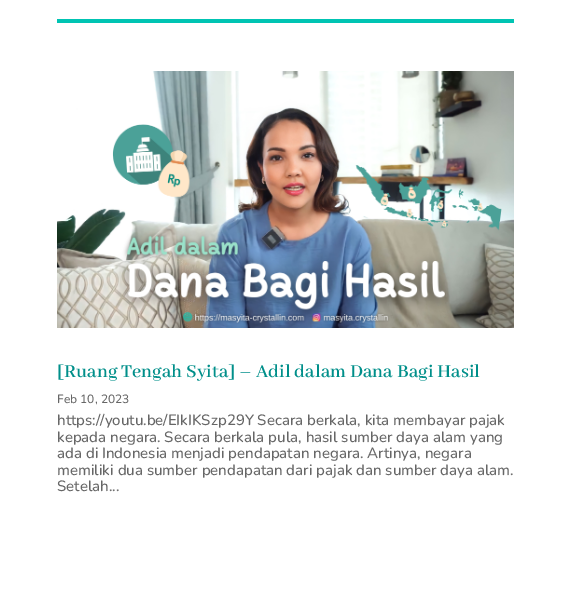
%!PS
<< /PageSize [571 610] >> setpagedevice
/co { dup -16 bitshift 255 div exch dup -8 bitshift 255 and 255 div exch 255 and 255 div setrgbcolor } def
/fn { [ exch dup neg 0 0 3 -1 roll 0 0 ] selectfont } def
/tx { co fn moveto show } def
/bx { co rectfill } def
/im { 5 dict begin { /h /w /y /x /name } { exch def } forall
  gsave x y translate w h scale
  w h 8 [w 0 0 h 0 0] name (r) file false 3 colorimage grestore end } def
0 610 translate 1 -1 scale
4 setmiterlimit
0 0 571 610 16#FFFFFF bx
57 19 457 4 16#00C4B3 bx
(media/1.raw) 57 71 457 257 im
([Ruang Tengah Syita] – Adil dalam Dana Bagi Hasil) 57 377 /AbhayaLibre-SemiBold 20 16#008F8A tx
(Feb 10, 2023) 57 403 /Nunito-Medium 12 16#666666 tx
(https://youtu.be/EIkIKSzp29Y Secara berkala, kita membayar pajak) 57 425 /Nunito-Medium 15 16#666666 tx
(kepada negara. Secara berkala pula, hasil sumber daya alam yang) 57 442 /Nunito-Medium 15 16#666666 tx
(ada di Indonesia menjadi pendapatan negara. Artinya, negara) 57 458 /Nunito-Medium 15 16#666666 tx
(memiliki dua sumber pendapatan dari pajak dan sumber daya alam.) 57 475 /Nunito-Medium 15 16#666666 tx
(Setelah...) 57 491 /Nunito-Medium 15 16#666666 tx
showpage
